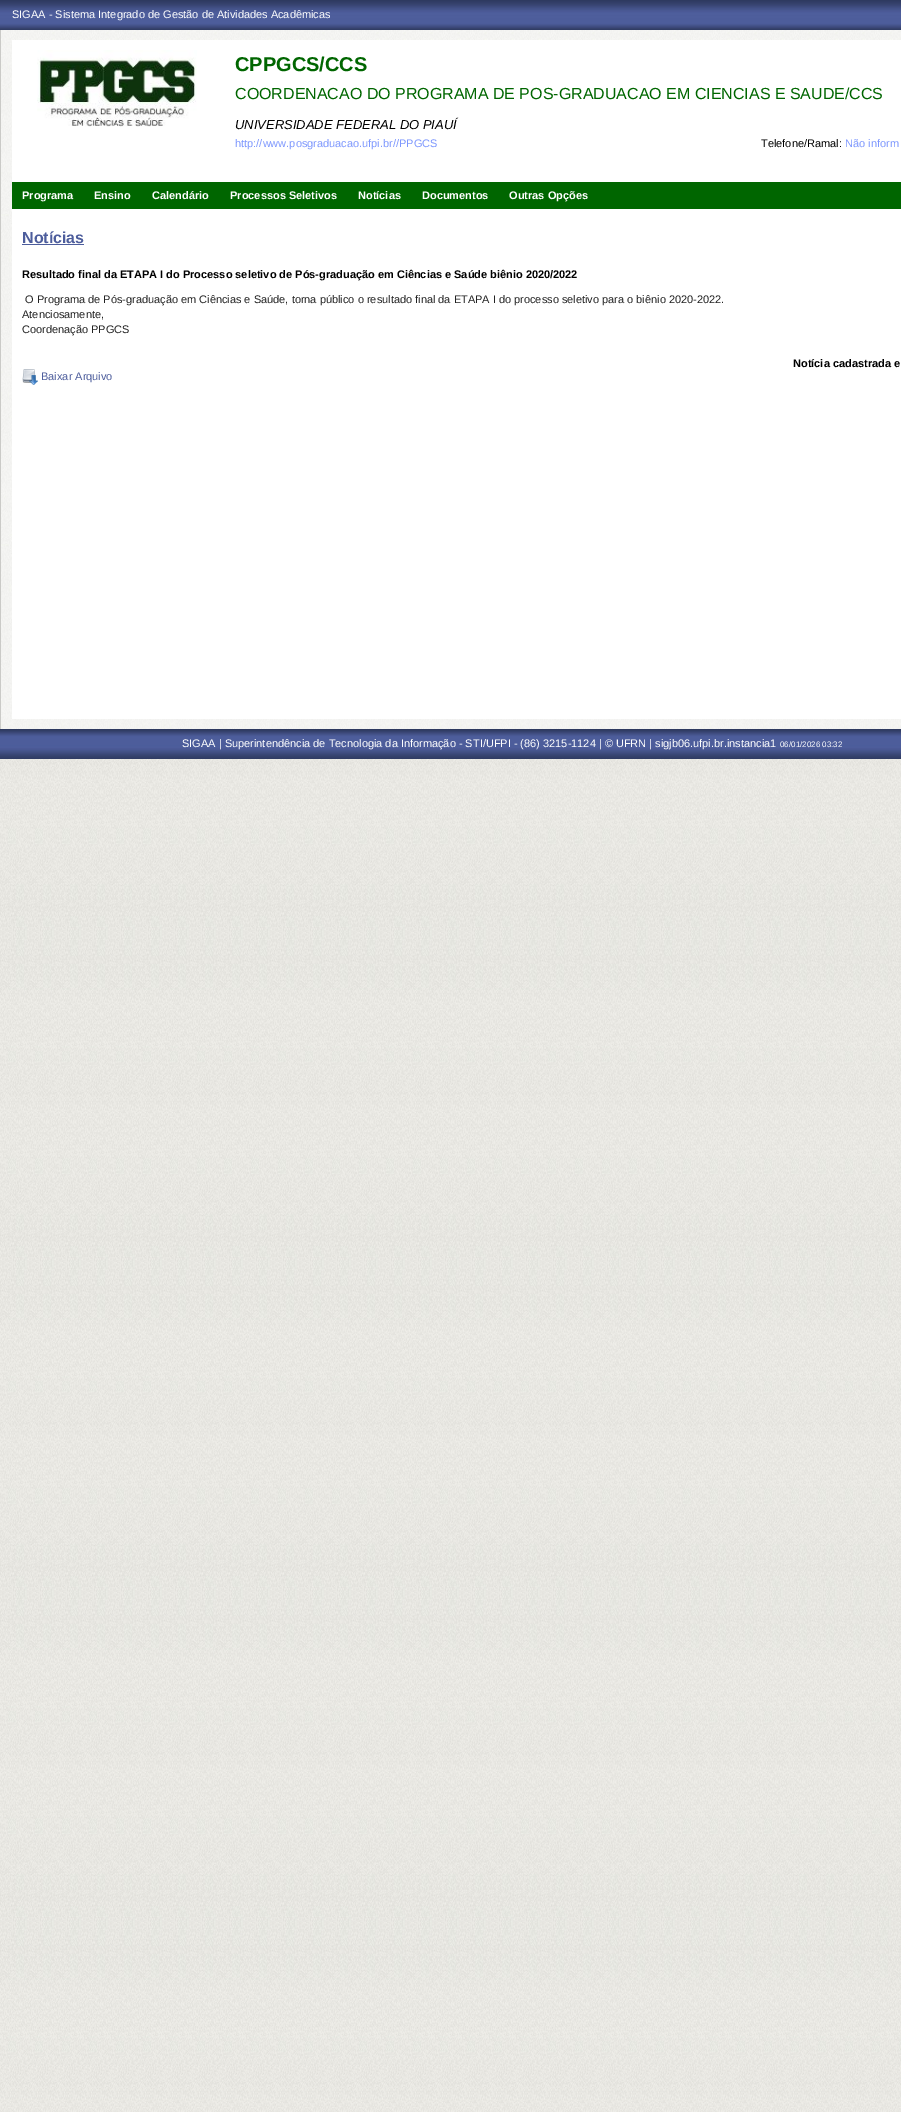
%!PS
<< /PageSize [901 2112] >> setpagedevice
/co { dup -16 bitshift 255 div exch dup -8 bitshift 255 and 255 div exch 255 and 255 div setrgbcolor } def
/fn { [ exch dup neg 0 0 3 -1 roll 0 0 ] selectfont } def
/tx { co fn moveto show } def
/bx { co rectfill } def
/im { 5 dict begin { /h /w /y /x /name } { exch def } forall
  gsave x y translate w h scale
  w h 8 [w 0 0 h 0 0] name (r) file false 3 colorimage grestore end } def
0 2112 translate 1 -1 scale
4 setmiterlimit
0 0 901 2112 16#FFFFFF bx
(media/1.raw) 0 759 901 1353 im
(media/2.raw) 0 0 901 30 im
(media/3.raw) 0 729 901 30 im
(media/4.raw) 1 30 900 699 im
0 30 1 699 16#CACAC7 bx
12 40 889 679 16#FFFFFF bx
(media/5.raw) 37 50 160 77 im
12 182 889 27 16#006600 bx
22 244 62 1 16#4D5D9C bx
(media/6.raw) 22 369 16 16 im
(SIGAA - Sistema Integrado de Gestão de Atividades Acadêmicas) 12 18 /LiberationSans-Regular 11 16#FFFFFF tx
(CPPGCS/CCS) 235 71 /LiberationSans-Bold 20 16#006600 tx
(COORDENACAO DO PROGRAMA DE POS-GRADUACAO EM CIENCIAS E SAUDE/CCS) 235 99 /LiberationSans-Regular 16 16#006600 tx
(UNIVERSIDADE FEDERAL DO PIAUÍ) 235 129 /LiberationSans-Italic 13 16#000000 tx
(http://www.posgraduacao.ufpi.br//PPGCS) 235 147 /LiberationSans-Regular 11 16#7D97FE tx
(Telefone/Ramal:) 761 147 /LiberationSans-Regular 11 16#000000 tx
(Não inform) 845 147 /LiberationSans-Regular 11 16#7D97FE tx
(Programa) 22 199 /LiberationSans-Bold 11 16#FFFFFF tx
(Ensino) 94 199 /LiberationSans-Bold 11 16#FFFFFF tx
(Calendário) 152 199 /LiberationSans-Bold 11 16#FFFFFF tx
(Processos Seletivos) 230 199 /LiberationSans-Bold 11 16#FFFFFF tx
(Notícias) 358 199 /LiberationSans-Bold 11 16#FFFFFF tx
(Documentos) 422 199 /LiberationSans-Bold 11 16#FFFFFF tx
(Outras Opções) 509 199 /LiberationSans-Bold 11 16#FFFFFF tx
(Notícias) 22 243 /LiberationSans-Bold 16 16#4D5D9C tx
(Resultado final da ETAPA I do Processo seletivo de Pós-graduação em Ciências e Saúde biênio 2020/2022) 22 278 /LiberationSans-Bold 11 16#000000 tx
(O Programa de Pós-graduação em Ciências e Saúde, torna público o resultado final da ETAPA I do processo seletivo para o biênio 2020-2022.) 25 303 /LiberationSans-Regular 11 16#222222 tx
(Atenciosamente,) 22 318 /LiberationSans-Regular 11 16#222222 tx
(Coordenação PPGCS) 22 333 /LiberationSans-Regular 11 16#222222 tx
(Notícia cadastrada e) 793 367 /LiberationSans-Bold 11 16#000000 tx
(Baixar Arquivo) 41 380 /LiberationSans-Regular 11 16#4D5D9C tx
(SIGAA | Superintendência de Tecnologia da Informação - STI/UFPI - \(86\) 3215-1124 | © UFRN | sigjb06.ufpi.br.instancia1) 182 747 /LiberationSans-Regular 11 16#FFFFFF tx
(06/01/2026 03:32) 780 747 /LiberationSans-Regular 8 16#FFFFFF tx
showpage
